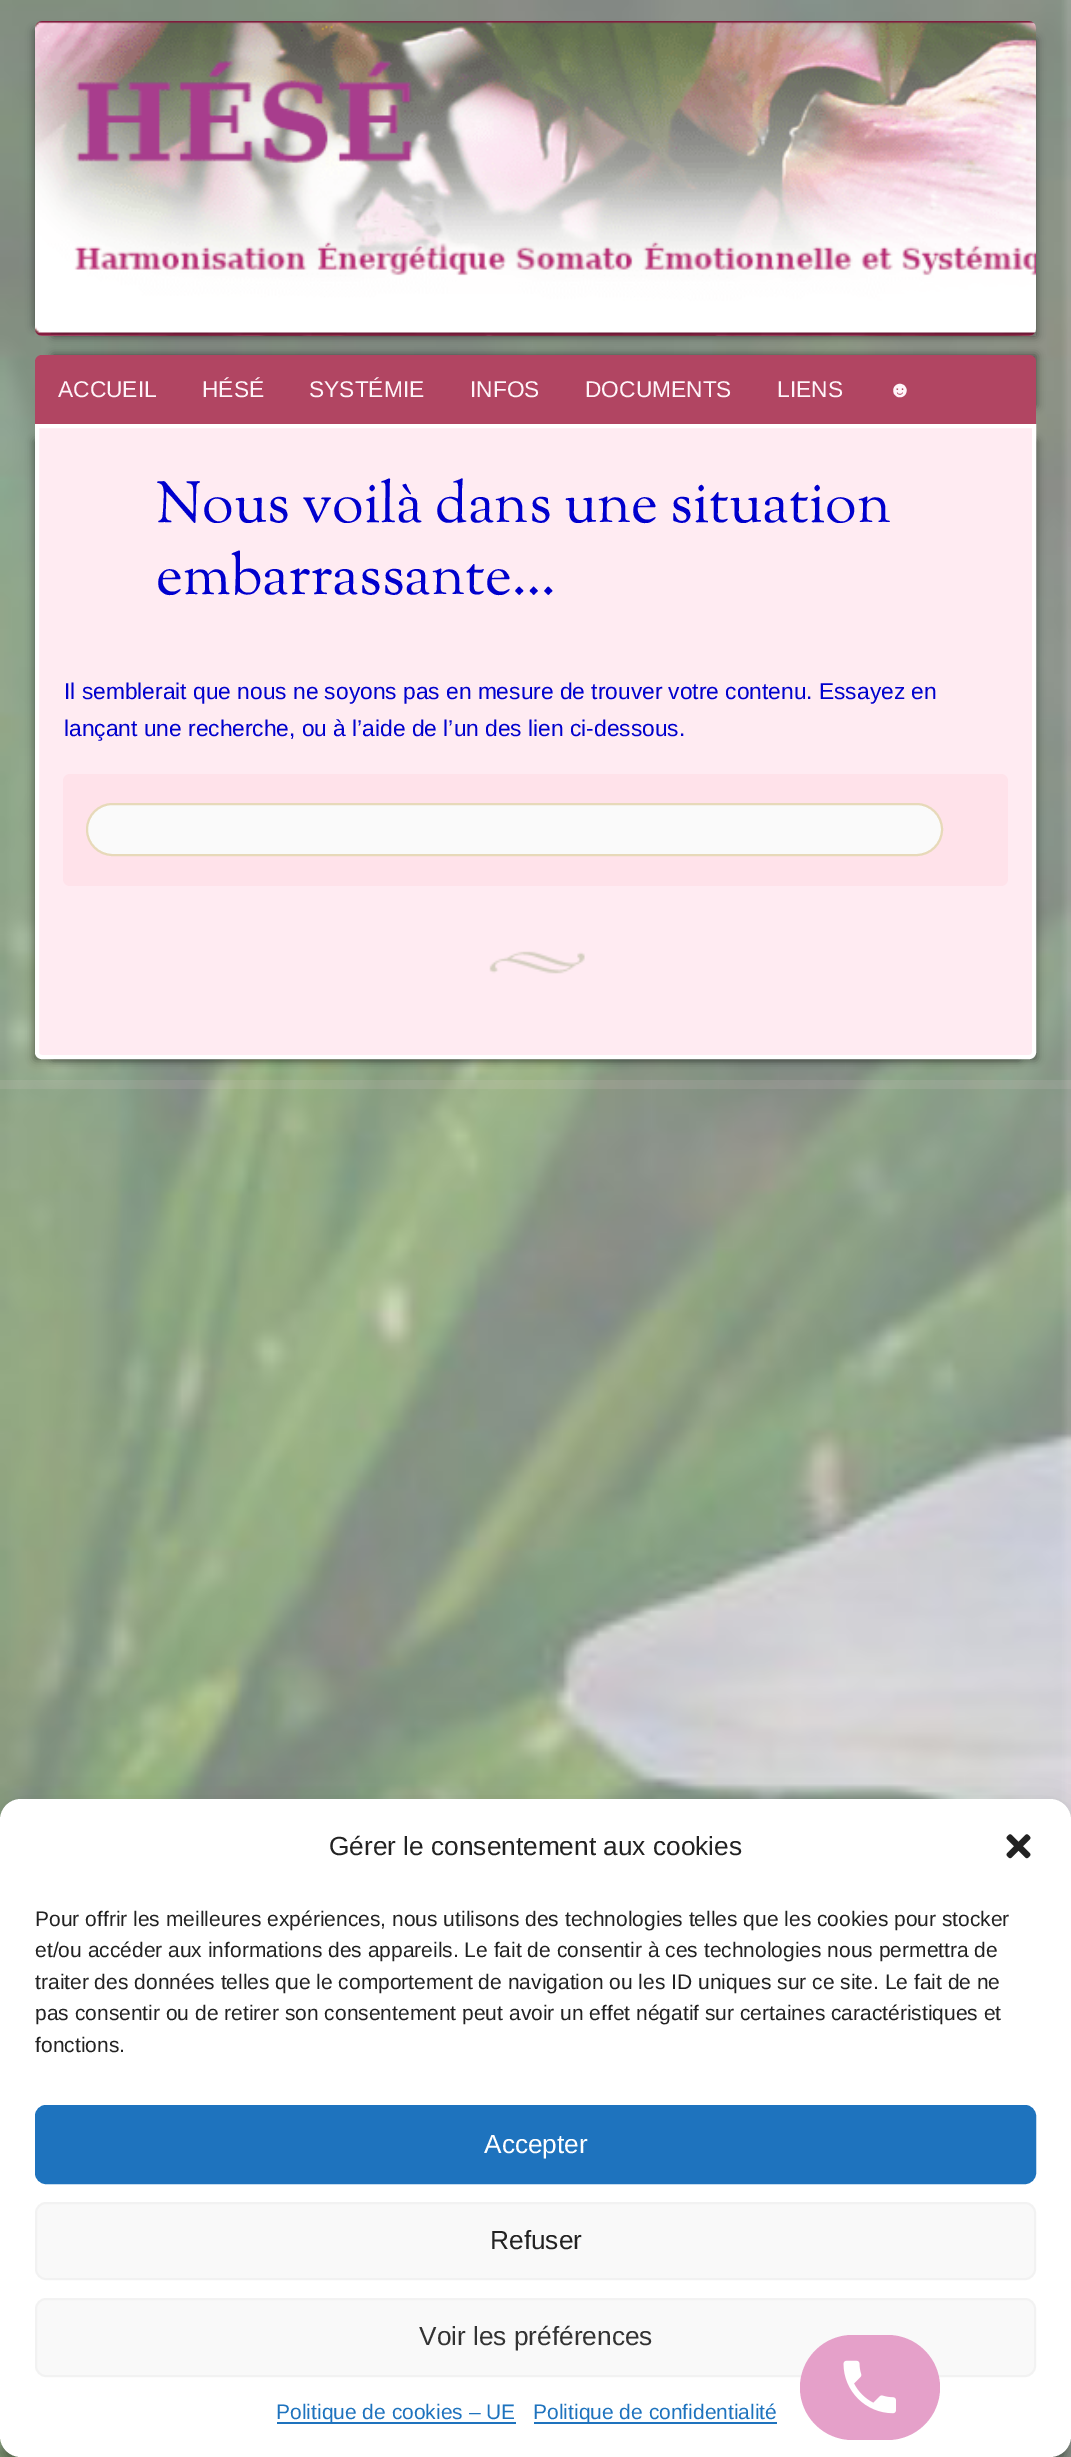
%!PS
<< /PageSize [1071 2457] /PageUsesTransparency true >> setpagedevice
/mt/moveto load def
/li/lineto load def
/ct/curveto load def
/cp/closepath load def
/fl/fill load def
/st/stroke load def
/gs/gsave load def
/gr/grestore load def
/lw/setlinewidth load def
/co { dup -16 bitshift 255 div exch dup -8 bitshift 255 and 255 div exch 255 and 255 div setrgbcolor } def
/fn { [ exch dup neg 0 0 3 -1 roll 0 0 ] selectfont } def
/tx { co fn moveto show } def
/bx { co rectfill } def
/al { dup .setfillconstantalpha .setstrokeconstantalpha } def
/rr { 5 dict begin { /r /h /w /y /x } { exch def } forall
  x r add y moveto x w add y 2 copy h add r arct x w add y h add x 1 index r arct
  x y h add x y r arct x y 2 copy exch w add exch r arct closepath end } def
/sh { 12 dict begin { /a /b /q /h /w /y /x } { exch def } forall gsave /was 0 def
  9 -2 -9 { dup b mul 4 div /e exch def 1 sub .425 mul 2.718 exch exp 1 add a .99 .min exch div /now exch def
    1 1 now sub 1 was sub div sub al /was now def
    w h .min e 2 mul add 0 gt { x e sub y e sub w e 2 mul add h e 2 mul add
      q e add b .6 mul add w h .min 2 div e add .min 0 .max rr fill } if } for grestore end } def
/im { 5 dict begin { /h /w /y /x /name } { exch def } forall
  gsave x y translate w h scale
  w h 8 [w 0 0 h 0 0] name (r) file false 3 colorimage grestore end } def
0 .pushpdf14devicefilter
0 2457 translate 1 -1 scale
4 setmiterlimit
0 0 1071 2457 16#FFFFFF bx
(media/1.raw) 0 0 1071 2457 im
16#000000 co
35 30 984 297 0 4.5 .5 sh
53 39 983 297 0 4.5 .5 sh
(media/2.raw) 35 21 1001 315 im
53 355 983 51 0 4.5 .5 sh
16#B14562 co
42 355 mt 1029 355 li 1033 355 1036 358 1036 362 ct 1036 424 li 35 424 li 35 362 li 35 358 38 355 42 355 ct cp fl
16#000000 co
35 441 984 618 0 4.5 .5 sh
53 441 983 618 0 4.5 .5 sh
16#FFEBF2 co
37 426 mt 1034 426 li 1034 1052 li 1034 1055 1032 1057 1029 1057 ct 42 1057 li 39 1057 37 1055 37 1052 ct cp gs fl gr
16#FFFFFF co
4 lw
st
(media/3.raw) 489 951 96 23 im
16#FFE2EA co
63 774 945 112 7 rr fl
16#FAFAFA co
87 804 855 51 25.5 rr gs fl gr
16#E7D9B9 co
2 lw
st
0.1 al
0 1080 1071 9 16#FFD8E8 bx
1 al
16#000000 co
0 1810 1071 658 21 5 .23 sh
0 1817 1071 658 21 17.5 .19 sh
16#FFFFFF co
0 1799 1071 658 21 rr fl
(media/4.raw) 1006 1834 25 25 im
16#1E73BE co
36 2106 999 77 10 rr gs fl gr
st
16#F9F9F9 co
36 2203 999 76 10 rr gs fl gr
16#F2F2F2 co
st
16#F9F9F9 co
36 2299 999 77 10 rr gs fl gr
16#F2F2F2 co
st
277 2422 239 2 16#1E73BE bx
534 2422 243 2 16#1E73BE bx
16#E5A0C9 co
800 2335 140 105 52.5 rr fl
(media/5.raw) 843 2360 53 54 im
(ACCUEIL) 58 397 /LiberationSans-Regular 22.75 16#FFF4F9 tx
(HÉSÉ) 202 397 /LiberationSans-Regular 22.75 16#FFF4F9 tx
(SYSTÉMIE) 309 397 /LiberationSans-Regular 22.75 16#FFF4F9 tx
(INFOS) 470 397 /LiberationSans-Regular 22.75 16#FFF4F9 tx
(DOCUMENTS) 585 397 /LiberationSans-Regular 22.75 16#FFF4F9 tx
(LIENS) 777 397 /LiberationSans-Regular 22.75 16#FFF4F9 tx
(☻) 888 397 /LiberationSans-Regular 22.75 16#FFF4F9 tx
(Nous voilà dans une situation) 156 522 /SortsMillGoudy-Regular 57.75 16#0000CD tx
(embarrassante…) 156 594 /SortsMillGoudy-Regular 57.75 16#0000CD tx
(Il semblerait que nous ne soyons pas en mesure de trouver votre contenu. Essayez en) 64 699 /LiberationSans-Regular 22.75 16#0000CD tx
(lançant une recherche, ou à l’aide de l’un des lien ci-dessous.) 64 736 /LiberationSans-Regular 22.75 16#0000CD tx
(Gérer le consentement aux cookies) 329 1855 /LiberationSans-Regular 26.25 16#222222 tx
(Pour offrir les meilleures expériences, nous utilisons des technologies telles que les cookies pour stocker) 35 1926 /LiberationSans-Regular 21 16#222222 tx
(et/ou accéder aux informations des appareils. Le fait de consentir à ces technologies nous permettra de) 35 1957 /LiberationSans-Regular 21 16#222222 tx
(traiter des données telles que le comportement de navigation ou les ID uniques sur ce site. Le fait de ne) 35 1989 /LiberationSans-Regular 21 16#222222 tx
(pas consentir ou de retirer son consentement peut avoir un effet négatif sur certaines caractéristiques et) 35 2020 /LiberationSans-Regular 21 16#222222 tx
(fonctions.) 35 2052 /LiberationSans-Regular 21 16#222222 tx
(Accepter) 484 2153 /LiberationSans-Regular 26.25 16#FFFFFF tx
(Refuser) 490 2249 /LiberationSans-Regular 26.25 16#222222 tx
(Voir les préférences) 419 2345 /LiberationSans-Regular 26.25 16#333333 tx
(Politique de cookies – UE) 276 2419 /LiberationSans-Regular 21 16#1E73BE tx
(Politique de confidentialité) 533 2419 /LiberationSans-Regular 21 16#1E73BE tx
.poppdf14devicefilter showpage
